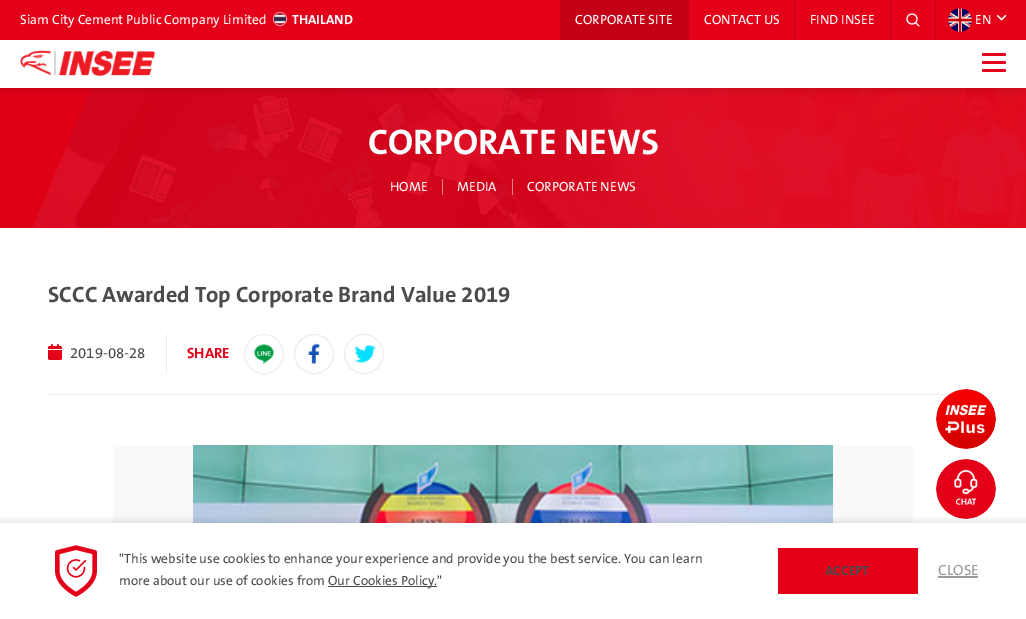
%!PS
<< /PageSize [1026 619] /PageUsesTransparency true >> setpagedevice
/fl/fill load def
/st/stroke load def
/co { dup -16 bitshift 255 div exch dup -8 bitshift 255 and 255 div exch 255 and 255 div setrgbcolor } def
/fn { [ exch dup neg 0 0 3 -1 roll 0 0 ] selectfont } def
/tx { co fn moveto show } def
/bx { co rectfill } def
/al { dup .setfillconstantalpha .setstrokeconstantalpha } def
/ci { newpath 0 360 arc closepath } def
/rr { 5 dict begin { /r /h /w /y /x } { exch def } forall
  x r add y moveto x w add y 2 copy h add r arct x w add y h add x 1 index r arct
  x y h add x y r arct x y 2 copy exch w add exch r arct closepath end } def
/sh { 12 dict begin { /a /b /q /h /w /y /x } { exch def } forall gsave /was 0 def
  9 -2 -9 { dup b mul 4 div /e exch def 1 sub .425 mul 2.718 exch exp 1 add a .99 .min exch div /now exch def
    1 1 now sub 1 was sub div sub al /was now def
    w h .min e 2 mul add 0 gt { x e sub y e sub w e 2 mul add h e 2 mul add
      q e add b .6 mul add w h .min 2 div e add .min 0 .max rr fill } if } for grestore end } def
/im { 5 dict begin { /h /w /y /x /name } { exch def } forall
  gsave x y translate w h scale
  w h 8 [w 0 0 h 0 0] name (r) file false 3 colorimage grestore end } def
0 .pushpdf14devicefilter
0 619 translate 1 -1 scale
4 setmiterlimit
0 0 1026 619 16#FFFFFF bx
(media/6.raw) 0 88 1026 140 im
16#000000 co
0 3 1026 88 0 3 .1 sh
0 40 1026 48 16#FFFFFF bx
0 0 1026 40 16#E50019 bx
16#F599A3 co
280 19 6.5 ci st
(media/1.raw) 274 13 12 12 im
560 0 129 40 16#C30015 bx
794 0 1 40 16#C30015 bx
935 0 1 40 16#C30015 bx
890 0 1 40 16#C30015 bx
(media/2.raw) 906 13 14 14 im
(media/3.raw) 948 8 24 24 im
(media/4.raw) 996 15 11 6 im
16#E50019 co
982 53 24 3 1.5 rr fl
982 61 24 3 1.5 rr fl
982 69 24 3 1.5 rr fl
(media/5.raw) 20 50 136 26 im
442 179 1 16 16#E8828D bx
0.5 al
512 179 1 16 16#FFFFFF bx
1 al
48 394 902 1 16#EDEDED bx
(media/7.raw) 48 344 14 16 im
166 334 1 40 16#EDEDED bx
264 354 19.5 ci st
(media/8.raw) 254 344 20 20 im
314 354 19.5 ci st
(media/9.raw) 308 343 12 21 im
364 354 19.5 ci st
(media/10.raw) 354 344 22 19 im
113 445 800 78 16#F9F9F9 bx
(media/11.raw) 193 445 640 78 im
(media/12.raw) 936 389 60 60 im
(media/13.raw) 936 459 60 60 im
16#000000 co
0 520 1026 96 0 3 .1 sh
0 523 1026 96 16#FFFFFF bx
(media/14.raw) 55 545 42 52 im
(media/15.raw) 66 559 21 19 im
328 586 109 1 16#4B4B4B bx
778 548 140 46 16#E50019 bx
938 576 40 2 16#999999 bx
(Siam City Cement Public Company Limited) 20 24 /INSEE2-Regular 18 16#FFFFFF tx
(THAILAND) 292 24 /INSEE-Regular 18 16#FFFFFF tx
(CORPORATE SITE) 575 24 /INSEE2-Regular 18 16#FFFFFF tx
(CONTACT US) 704 24 /INSEE2-Regular 18 16#FFFFFF tx
(FIND INSEE) 810 24 /INSEE2-Regular 18 16#FFFFFF tx
(EN) 975 24 /INSEE2-Regular 18 16#FFFFFF tx
(CORPORATE NEWS) 368 154 /INSEE-Regular 48 16#FFFFFF tx
(HOME) 390 191 /INSEE2-Regular 18 16#FFFFFF tx
(MEDIA) 457 191 /INSEE2-Regular 18 16#FFFFFF tx
(CORPORATE NEWS) 527 191 /INSEE2-Regular 18 16#FFFFFF tx
(SCCC Awarded Top Corporate Brand Value 2019) 48 302 /INSEE-Regular 30 16#4B4B4B tx
(2019-08-28) 70 358 /INSEE2-Regular 20 16#4B4B4B tx
(SHARE) 187 358 /INSEE-Regular 20 16#E50019 tx
("This website use cookies to enhance your experience and provide you the best service. You can learn) 119 563 /INSEE2-Regular 18 16#4B4B4B tx
(more about our use of cookies from) 119 585 /INSEE2-Regular 18 16#4B4B4B tx
(Our Cookies Policy.") 328 585 /INSEE2-Regular 18 16#4B4B4B tx
(ACCEPT) 825 575 /INSEE-Regular 18 16#4B4B4B tx
(CLOSE) 938 575 /INSEE2-Regular 20 16#999999 tx
.poppdf14devicefilter showpage
